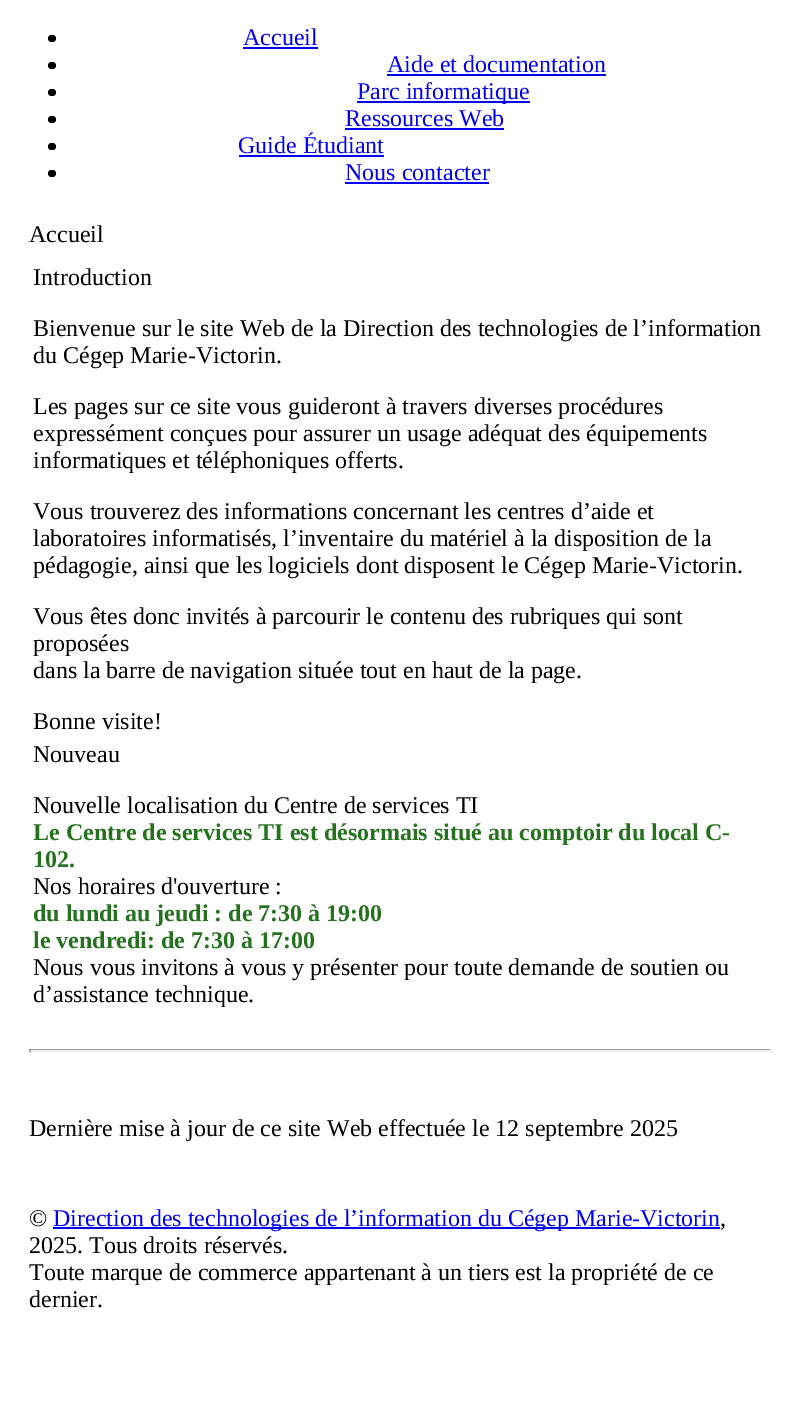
%!PS
<< /PageSize [799 1412] >> setpagedevice
/fl/fill load def
/co { dup -16 bitshift 255 div exch dup -8 bitshift 255 and 255 div exch 255 and 255 div setrgbcolor } def
/fn { [ exch dup neg 0 0 3 -1 roll 0 0 ] selectfont } def
/tx { co fn moveto show } def
/bx { co rectfill } def
/rr { 5 dict begin { /r /h /w /y /x } { exch def } forall
  x r add y moveto x w add y 2 copy h add r arct x w add y h add x 1 index r arct
  x y h add x y r arct x y 2 copy exch w add exch r arct closepath end } def
0 1412 translate 1 -1 scale
4 setmiterlimit
0 0 799 1412 16#FFFFFF bx
16#000000 co
48 35 8 7 3.5 rr fl
243 47 75 2 16#0000EE bx
16#000000 co
48 62 8 7 3.5 rr fl
387 74 219 2 16#0000EE bx
16#000000 co
48 89 8 7 3.5 rr fl
357 101 173 2 16#0000EE bx
16#000000 co
48 116 8 7 3.5 rr fl
345 128 159 2 16#0000EE bx
16#000000 co
48 143 8 7 3.5 rr fl
239 155 145 2 16#0000EE bx
16#000000 co
48 170 8 7 3.5 rr fl
345 182 144 2 16#0000EE bx
29 1049 742 1 16#9F9F9F bx
770 1049 2 3 16#EEEEEE bx
29 1050 742 2 16#EEEEEE bx
29 1049 2 3 16#9F9F9F bx
53 1227 667 2 16#0000EE bx
(Accueil) 243 45 /LiberationSerif-Regular 24 16#0000EE tx
(Aide et documentation) 387 72 /LiberationSerif-Regular 24 16#0000EE tx
(Parc informatique) 357 99 /LiberationSerif-Regular 24 16#0000EE tx
(Ressources Web) 345 126 /LiberationSerif-Regular 24 16#0000EE tx
(Guide Étudiant) 238 153 /LiberationSerif-Regular 24 16#0000EE tx
(Nous contacter) 345 180 /LiberationSerif-Regular 24 16#0000EE tx
(Accueil) 29 242 /LiberationSerif-Regular 24 16#000000 tx
(Introduction) 33 285 /LiberationSerif-Regular 24 16#000000 tx
(Bienvenue sur le site Web de la Direction des technologies de l’information) 33 336 /LiberationSerif-Regular 24 16#000000 tx
(du Cégep Marie-Victorin.) 33 363 /LiberationSerif-Regular 24 16#000000 tx
(Les pages sur ce site vous guideront à travers diverses procédures) 33 414 /LiberationSerif-Regular 24 16#000000 tx
(expressément conçues pour assurer un usage adéquat des équipements) 33 441 /LiberationSerif-Regular 24 16#000000 tx
(informatiques et téléphoniques offerts.) 33 468 /LiberationSerif-Regular 24 16#000000 tx
(Vous trouverez des informations concernant les centres d’aide et) 33 519 /LiberationSerif-Regular 24 16#000000 tx
(laboratoires informatisés, l’inventaire du matériel à la disposition de la) 33 546 /LiberationSerif-Regular 24 16#000000 tx
(pédagogie, ainsi que les logiciels dont disposent le Cégep Marie-Victorin.) 33 573 /LiberationSerif-Regular 24 16#000000 tx
(Vous êtes donc invités à parcourir le contenu des rubriques qui sont) 33 624 /LiberationSerif-Regular 24 16#000000 tx
(proposées) 33 651 /LiberationSerif-Regular 24 16#000000 tx
(dans la barre de navigation située tout en haut de la page.) 33 678 /LiberationSerif-Regular 24 16#000000 tx
(Bonne visite!) 33 729 /LiberationSerif-Regular 24 16#000000 tx
(Nouveau) 33 762 /LiberationSerif-Regular 24 16#000000 tx
(Nouvelle localisation du Centre de services TI) 33 813 /LiberationSerif-Regular 24 16#000000 tx
(Le Centre de services TI est désormais situé au comptoir du local C-) 33 840 /LiberationSerif-Bold 24 16#25721E tx
(102.) 33 867 /LiberationSerif-Bold 24 16#25721E tx
(Nos horaires d'ouverture :) 33 894 /LiberationSerif-Regular 24 16#000000 tx
(du lundi au jeudi : de 7:30 à 19:00) 33 921 /LiberationSerif-Bold 24 16#25721E tx
(le vendredi: de 7:30 à 17:00) 33 948 /LiberationSerif-Bold 24 16#25721E tx
(Nous vous invitons à vous y présenter pour toute demande de soutien ou) 33 975 /LiberationSerif-Regular 24 16#000000 tx
(d’assistance technique.) 33 1002 /LiberationSerif-Regular 24 16#000000 tx
(Dernière mise à jour de ce site Web effectuée le 12 septembre 2025) 29 1136 /LiberationSerif-Regular 24 16#000000 tx
(©) 29 1226 /LiberationSerif-Regular 24 16#000000 tx
(Direction des technologies de l’information du Cégep Marie-Victorin) 53 1226 /LiberationSerif-Regular 24 16#0000EE tx
(,) 720 1226 /LiberationSerif-Regular 24 16#000000 tx
(2025. Tous droits réservés.) 29 1253 /LiberationSerif-Regular 24 16#000000 tx
(Toute marque de commerce appartenant à un tiers est la propriété de ce) 29 1280 /LiberationSerif-Regular 24 16#000000 tx
(dernier.) 29 1307 /LiberationSerif-Regular 24 16#000000 tx
showpage
